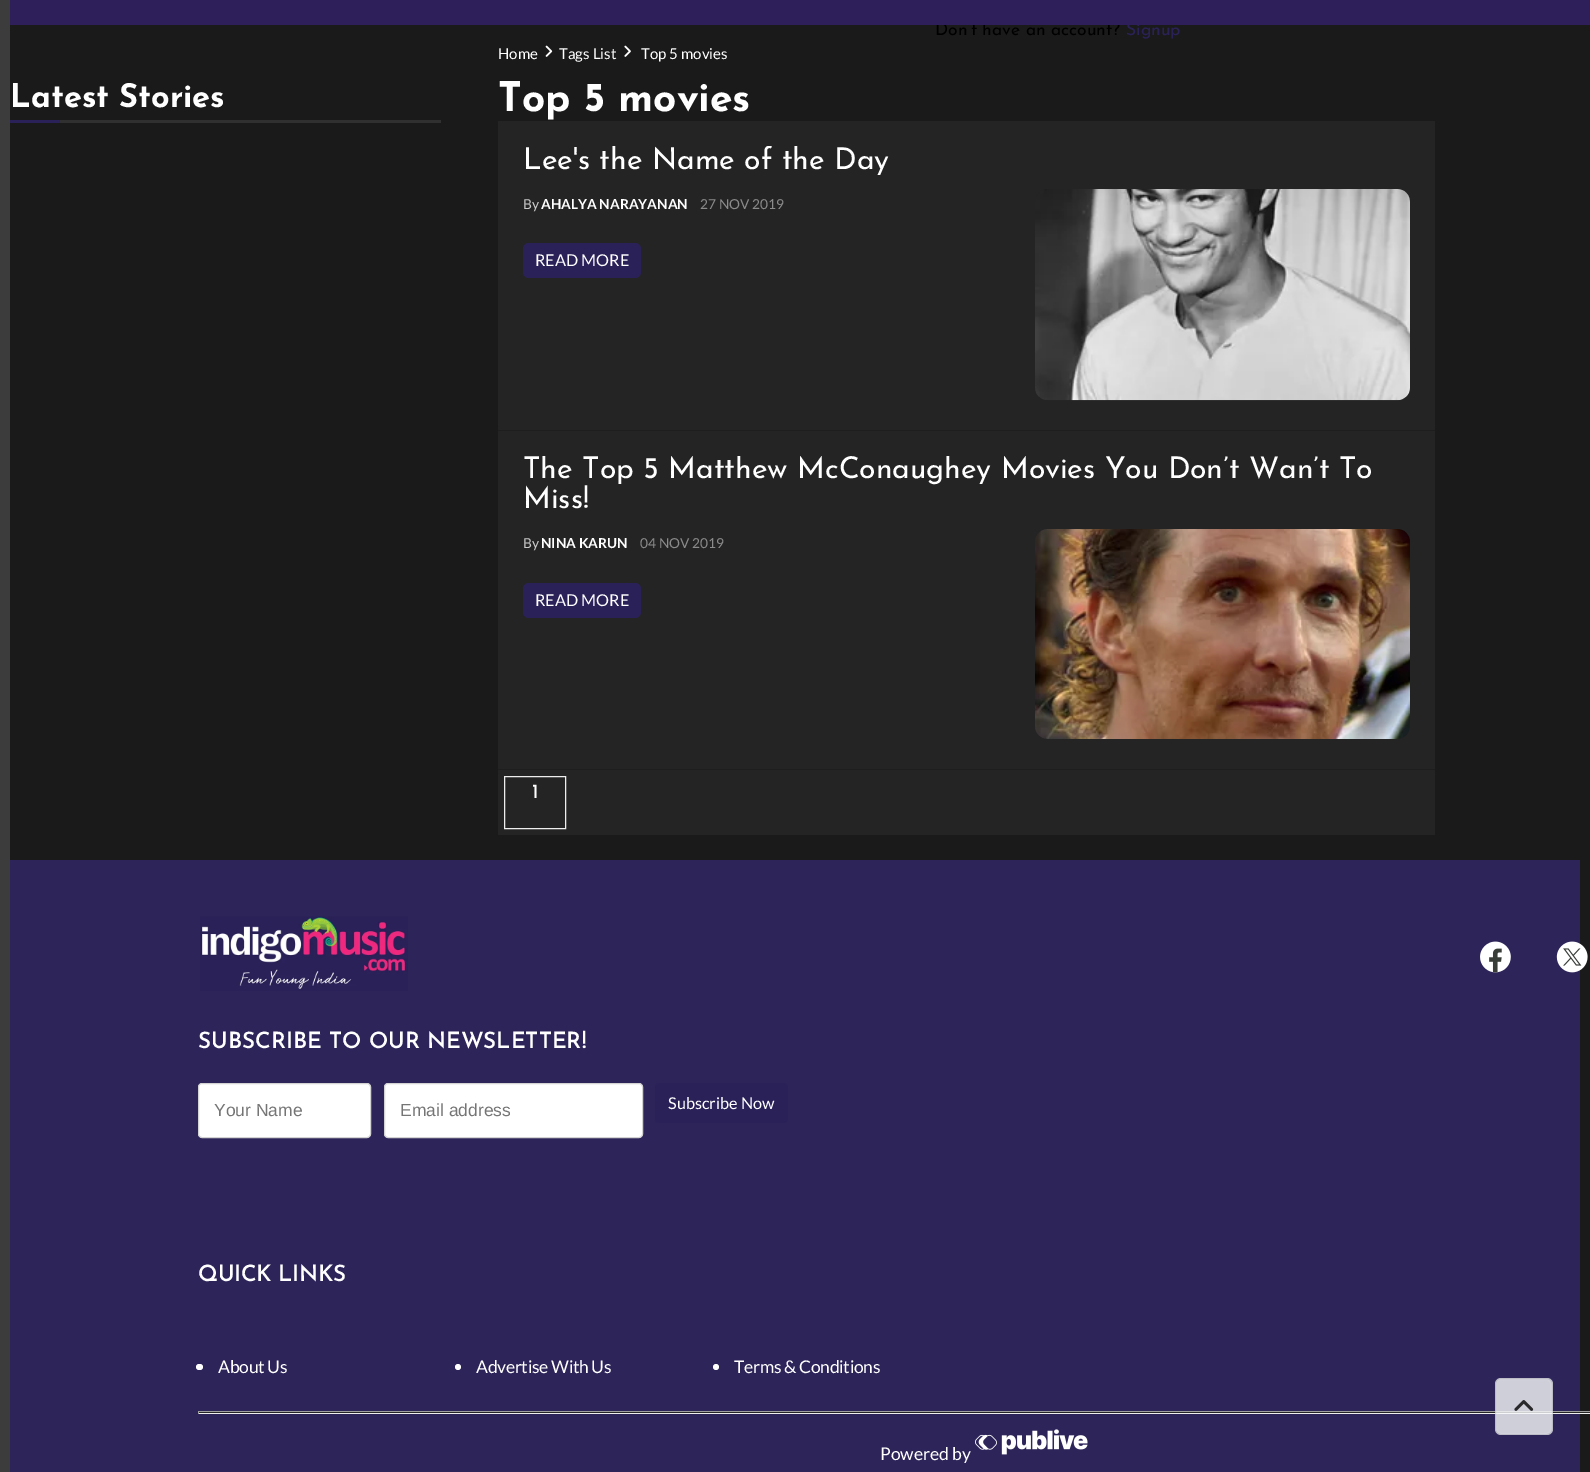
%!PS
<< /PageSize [1590 1472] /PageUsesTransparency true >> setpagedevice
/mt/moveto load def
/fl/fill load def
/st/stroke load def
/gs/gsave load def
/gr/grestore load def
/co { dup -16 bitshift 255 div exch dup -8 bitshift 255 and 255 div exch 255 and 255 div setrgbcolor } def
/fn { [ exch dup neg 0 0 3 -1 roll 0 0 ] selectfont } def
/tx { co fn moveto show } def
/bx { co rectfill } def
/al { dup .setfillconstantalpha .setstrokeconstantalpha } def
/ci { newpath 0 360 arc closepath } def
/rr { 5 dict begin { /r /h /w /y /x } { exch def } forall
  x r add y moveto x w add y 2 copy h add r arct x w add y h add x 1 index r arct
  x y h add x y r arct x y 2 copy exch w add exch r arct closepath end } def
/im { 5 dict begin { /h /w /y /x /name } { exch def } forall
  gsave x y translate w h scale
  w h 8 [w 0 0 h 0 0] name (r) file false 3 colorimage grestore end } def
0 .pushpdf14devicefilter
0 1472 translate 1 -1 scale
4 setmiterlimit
0 0 1590 1472 16#1A1A1A bx
0 0 10 1472 16#3C3C3C bx
10 120 50 3 16#2B2159 bx
60 120 381 3 16#303030 bx
(media/1.raw) 545 45 8 12 im
(media/2.raw) 624 45 7 12 im
498 121 937 714 16#242424 bx
498 430 937 1 16#1E1E1E bx
(media/3.raw) 1035 189 375 212 im
16#2B2159 co
523 243 118 35 6 rr fl
498 769 937 1 16#1E1E1E bx
(media/4.raw) 1035 529 375 210 im
16#2B2159 co
523 583 118 35 6 rr fl
16#EEEEEE co
504.5 776.5 61 52 rectstroke
10 860 1570 612 16#2D2559 bx
(media/5.raw) 1480 941 31 32 im
(media/6.raw) 1556 941 32 32 im
(media/7.raw) 200 916 208 75 im
16#FFFFFF co
198.5 1083.5 172 54 3.5 rr gs fl gr
16#D3D3D3 co
st
16#FFFFFF co
384.5 1083.5 258 54 3.5 rr gs fl gr
16#D3D3D3 co
st
16#2B2159 co
655 1083 133 40 4 rr fl
16#FFFFFF co
196 1364 7 6 3 rr fl
458 1367 3 ci fl
716 1367 3 ci fl
198 1412 1392 1 16#262626 bx
198 1411 1392 1 16#9F9F9F bx
198 1413 1392 1 16#EEEEEE bx
198 1411 1 3 16#9F9F9F bx
(media/8.raw) 975 1429 113 26 im
0.8 al
16#F8F9FA co
1495 1378 58 57 6 rr fl
0.08 al
16#FFFFFF co
1496.5 1379.5 54 54 4.5 rr st
0.09 al
16#000000 co
1495.5 1378.5 57 56 5.5 rr st
1 al
(media/9.raw) 1514 1400 20 11 im
(Don’t have an account?) 935 35 /JosefinSans-Regular 17.5 16#000000 tx
(Signup) 1126 35 /JosefinSans-Regular 17.5 16#2B2159 tx
10 0 1580 25 16#2E1F5A bx
(Latest Stories) 10 107 /JosefinSans-Bold 32.5 16#FFFFFF tx
(Home) 498 59 /Lato-Regular 15 16#FFFFFF tx
(Tags List) 559 59 /Lato-Regular 15 16#FFFFFF tx
(Top 5 movies) 641 59 /Lato-Regular 15 16#FFFFFF tx
(Top 5 movies) 498 111 /JosefinSans-Bold 40.75 16#FFFFFF tx
gs
523 146 887 30 rectclip
(Lee's the Name of the Day) 523 169 /JosefinSans-Regular 30 16#FFFFFF tx
gr
(By) 523 209 /Lato-Regular 13.75 16#CACACA tx
(AHALYA NARAYANAN) 541 209 /Lato-Bold 13.75 16#FFFFFF tx
(27 NOV 2019) 700 209 /Lato-Regular 13.75 16#8B8B8B tx
(READ MORE) 535 266 /Lato-Regular 16.25 16#FFFFFF tx
gs
523 456 887 60 rectclip
(The Top 5 Matthew McConaughey Movies You Don’t Wan’t To) 523 478 /JosefinSans-Regular 30 16#FFFFFF tx
gr
(Miss!) 523 508 /JosefinSans-Regular 30 16#FFFFFF tx
(By) 523 548 /Lato-Regular 13.75 16#CACACA tx
(NINA KARUN) 541 548 /Lato-Bold 13.75 16#FFFFFF tx
(04 NOV 2019) 640 548 /Lato-Regular 13.75 16#8B8B8B tx
(READ MORE) 535 606 /Lato-Regular 16.25 16#FFFFFF tx
(1) 532 798 /JosefinSans-Medium 20 16#FFFFFF tx
(SUBSCRIBE TO OUR NEWSLETTER!) 198 1048 /JosefinSans-SemiBold 22.5 16#FFFFFF tx
(Your Name) 214 1116 /LiberationSans-Regular 17.5 16#757575 tx
(Email address) 400 1116 /LiberationSans-Regular 17.5 16#757575 tx
(Subscribe Now) 668 1109 /Lato-Regular 16.25 16#FFFFFF tx
/JosefinSans-SemiBold 22.5 fn
198 1281 mt -.3 0 (QUICK LINKS) ashow
/Lato-Regular 17.5 fn
218 1373 mt -.3 0 (About Us) ashow
476 1373 mt -.3 0 (Advertise With Us) ashow
734 1373 mt -.3 0 (Terms & Conditions) ashow
(Powered by) 880 1460 /Lato-Regular 17.5 16#FFFFFF tx
.poppdf14devicefilter showpage
